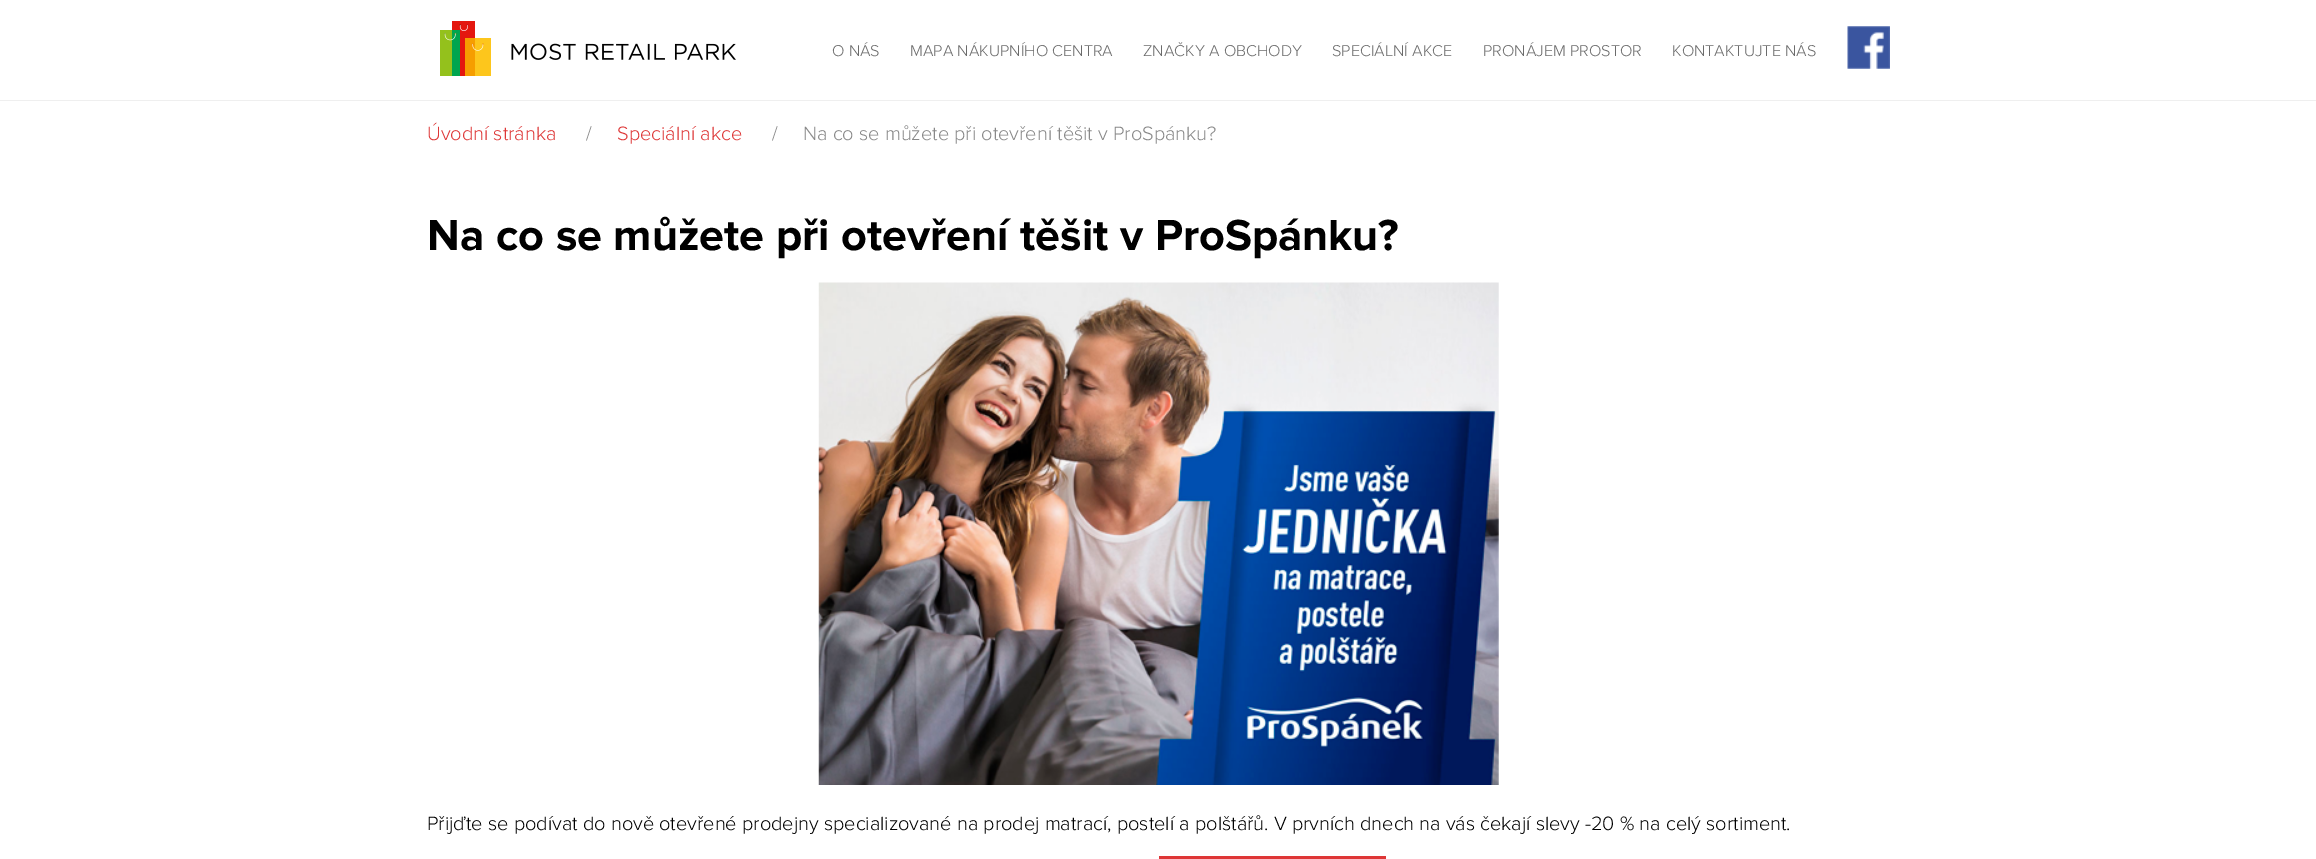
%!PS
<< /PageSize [2316 859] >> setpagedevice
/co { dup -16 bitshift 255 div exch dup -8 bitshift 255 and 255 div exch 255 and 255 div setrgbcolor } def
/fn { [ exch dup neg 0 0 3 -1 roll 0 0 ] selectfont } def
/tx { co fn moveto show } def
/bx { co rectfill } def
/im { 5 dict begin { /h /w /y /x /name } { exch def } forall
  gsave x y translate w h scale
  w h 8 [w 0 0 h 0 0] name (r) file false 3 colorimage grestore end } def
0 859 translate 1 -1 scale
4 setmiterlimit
0 0 2316 859 16#FFFFFF bx
0 100 2316 1 16#EFEFEF bx
(media/1.raw) 440 21 296 55 im
(media/2.raw) 1847 26 43 43 im
(media/3.raw) 818 282 681 503 im
1159 856 227 3 16#DE3636 bx
(O NÁS) 832 56 /ProximaNova-Light 16.25 16#6B6B6B tx
(MAPA NÁKUPNÍHO CENTRA) 910 56 /ProximaNova-Light 16.25 16#6B6B6B tx
(ZNAČKY A OBCHODY) 1143 56 /ProximaNova-Light 16.25 16#6B6B6B tx
(SPECIÁLNÍ AKCE) 1332 56 /ProximaNova-Light 16.25 16#6B6B6B tx
(PRONÁJEM PROSTOR) 1483 56 /ProximaNova-Light 16.25 16#6B6B6B tx
(KONTAKTUJTE NÁS) 1672 56 /ProximaNova-Light 16.25 16#6B6B6B tx
(Úvodní stránka) 427 140 /ProximaNova-Light 20 16#DE3636 tx
(/) 586 140 /ProximaNova-Light 20 16#888888 tx
(Speciální akce) 617 140 /ProximaNova-Light 20 16#DE3636 tx
(/) 772 140 /ProximaNova-Light 20 16#888888 tx
(Na co se můžete při otevření těšit v ProSpánku?) 803 140 /ProximaNova-Light 20 16#888888 tx
(Na co se můžete při otevření těšit v ProSpánku?) 427 250 /ProximaNova-Bold 45 16#000000 tx
(Přijďte se podívat do nově otevřené prodejny specializované na prodej matrací, postelí a polštářů. V prvních dnech na vás čekají slevy -20 % na celý sortiment.) 427 830 /ProximaNova-Light 20 16#000000 tx
showpage
